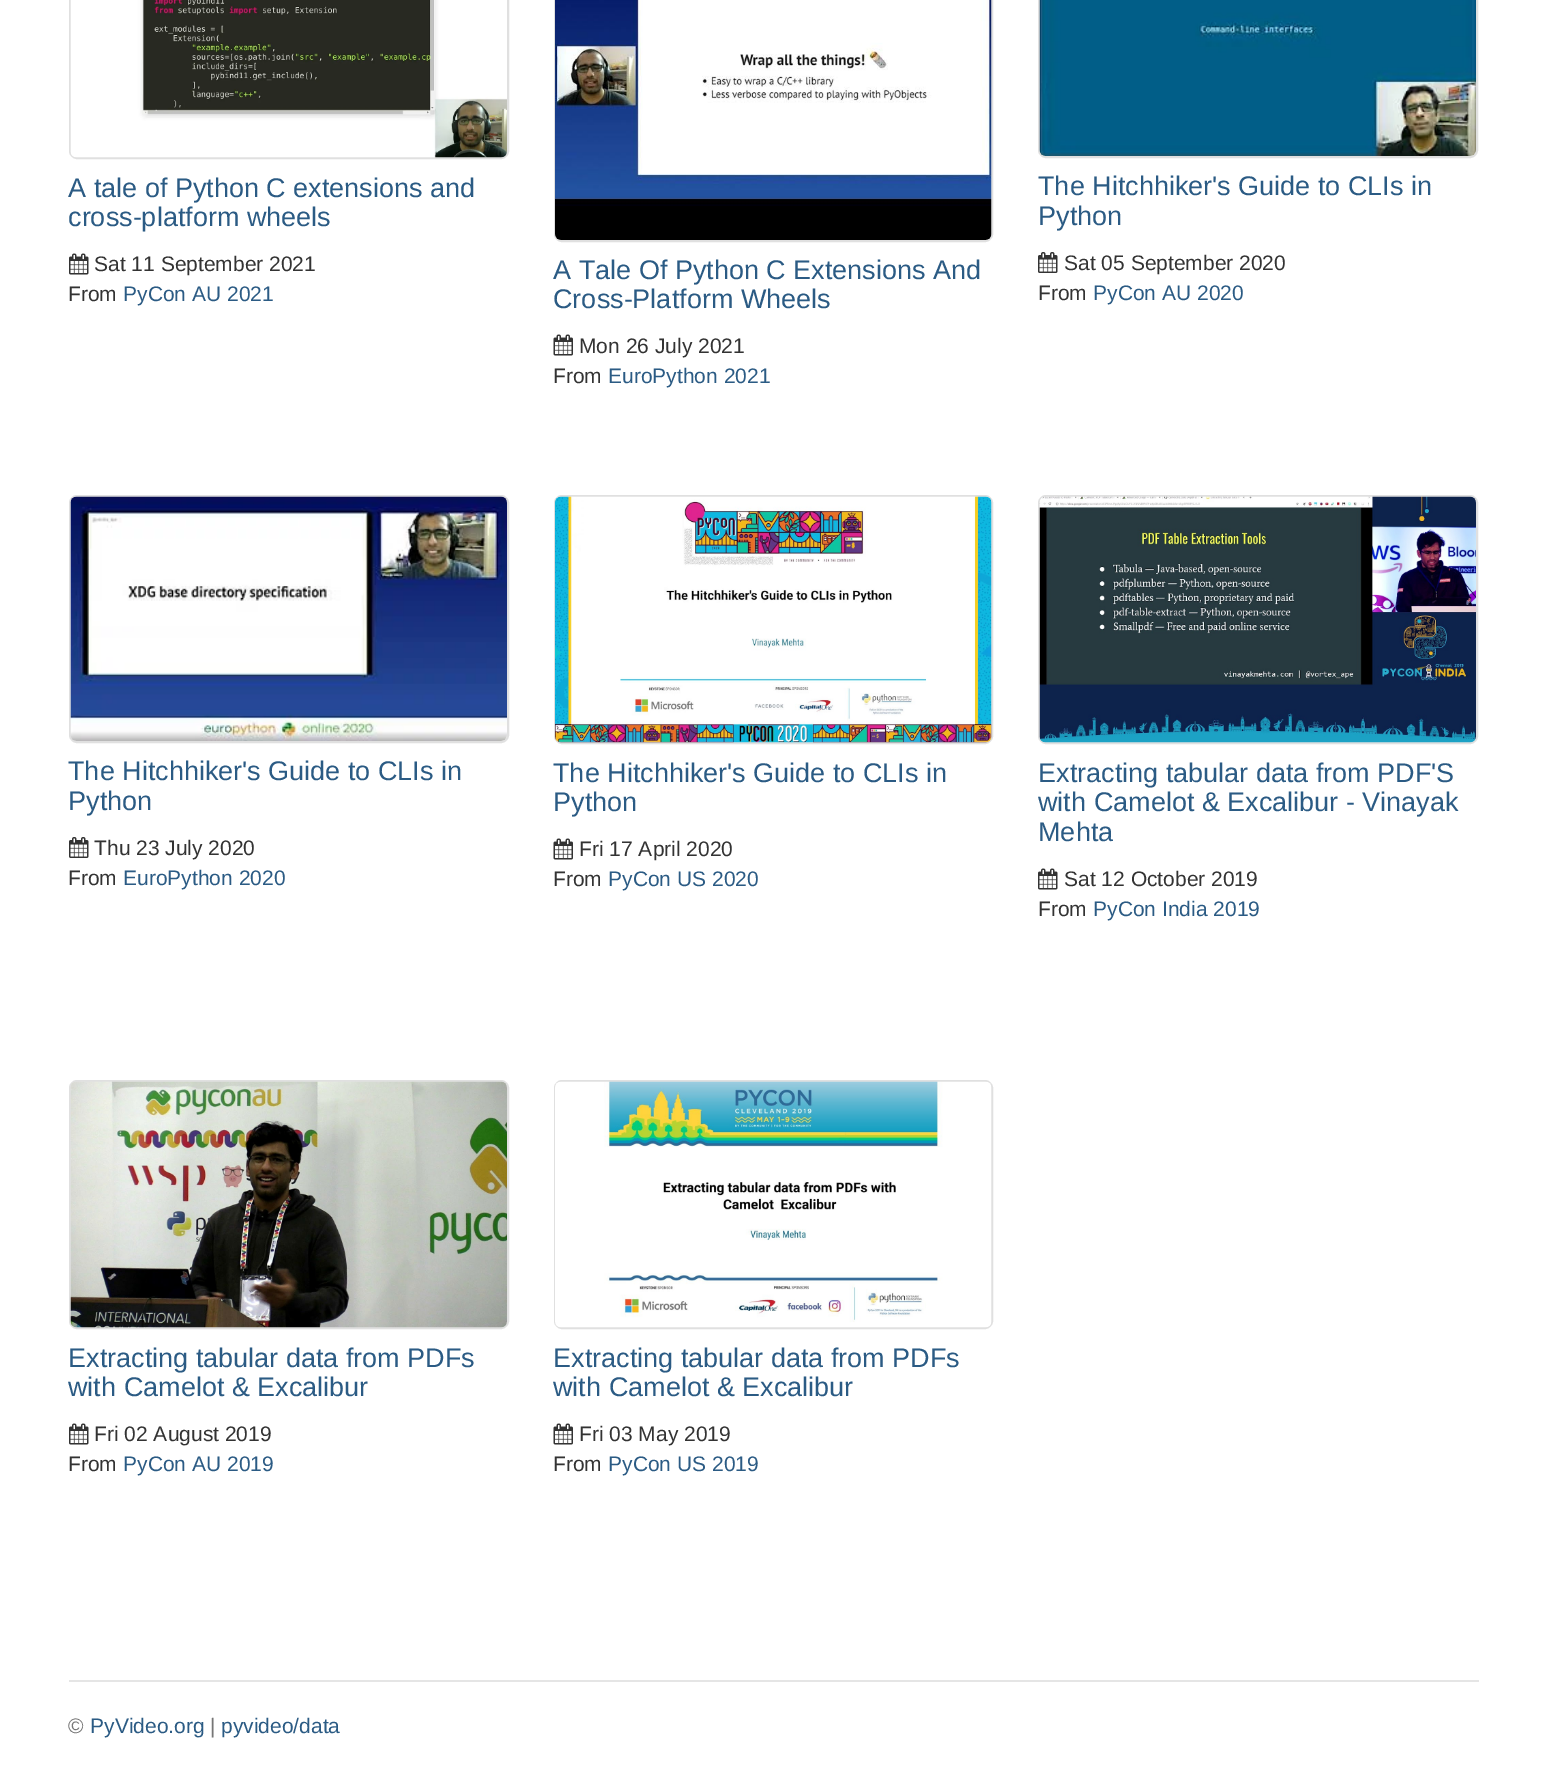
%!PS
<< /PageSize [1546 1784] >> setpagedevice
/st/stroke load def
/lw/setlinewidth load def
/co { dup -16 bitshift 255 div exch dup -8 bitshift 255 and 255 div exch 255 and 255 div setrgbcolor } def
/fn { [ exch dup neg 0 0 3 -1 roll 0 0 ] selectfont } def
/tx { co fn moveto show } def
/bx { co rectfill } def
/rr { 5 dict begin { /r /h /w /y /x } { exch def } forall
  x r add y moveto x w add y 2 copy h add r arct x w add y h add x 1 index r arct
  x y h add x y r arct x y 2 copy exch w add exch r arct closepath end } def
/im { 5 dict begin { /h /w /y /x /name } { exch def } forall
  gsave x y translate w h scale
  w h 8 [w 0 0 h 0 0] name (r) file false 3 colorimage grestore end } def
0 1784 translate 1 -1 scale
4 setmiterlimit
0 0 1546 1784 16#FFFFFF bx
16#E0E0E0 co
2 lw
70 -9 438 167 7 rr st
(media/1.raw) 70 0 437 158 im
(media/2.raw) 69 253 20 22 im
1039 -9 438 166 7 rr st
(media/3.raw) 1039 0 437 156 im
(media/4.raw) 1038 252 20 21 im
555 -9 437 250 7 rr st
(media/5.raw) 555 0 437 240 im
(media/6.raw) 553 334 20 22 im
70 496 438 246 7 rr st
(media/7.raw) 70 496 437 245 im
(media/4.raw) 69 837 20 21 im
555 496 437 247 7 rr st
(media/8.raw) 555 496 437 247 im
(media/6.raw) 553 838 20 22 im
1039 496 438 247 7 rr st
(media/9.raw) 1039 496 437 247 im
(media/2.raw) 1038 868 20 22 im
70 1081 438 247 7 rr st
(media/10.raw) 70 1081 437 247 im
(media/2.raw) 69 1423 20 22 im
555 1081 437 247 7 rr st
(media/11.raw) 555 1081 437 247 im
(media/6.raw) 553 1423 20 22 im
69 1680 1410 2 16#E5E5E5 bx
(A tale of Python C extensions and) 68 197 /LiberationSans-Regular 27 16#2B5B84 tx
(cross-platform wheels) 68 226 /LiberationSans-Regular 27 16#2B5B84 tx
(Sat 11 September 2021) 94 271 /LiberationSans-Regular 21 16#333333 tx
(From) 68 301 /LiberationSans-Regular 21 16#333333 tx
(PyCon AU 2021) 123 301 /LiberationSans-Regular 21 16#2B5B84 tx
(The Hitchhiker's Guide to CLIs in) 1038 195 /LiberationSans-Regular 27 16#2B5B84 tx
(Python) 1038 225 /LiberationSans-Regular 27 16#2B5B84 tx
(Sat 05 September 2020) 1064 270 /LiberationSans-Regular 21 16#333333 tx
(From) 1038 300 /LiberationSans-Regular 21 16#333333 tx
(PyCon AU 2020) 1093 300 /LiberationSans-Regular 21 16#2B5B84 tx
(A Tale Of Python C Extensions And) 553 279 /LiberationSans-Regular 27 16#2B5B84 tx
(Cross-Platform Wheels) 553 308 /LiberationSans-Regular 27 16#2B5B84 tx
(Mon 26 July 2021) 579 353 /LiberationSans-Regular 21 16#333333 tx
(From) 553 383 /LiberationSans-Regular 21 16#333333 tx
(EuroPython 2021) 608 383 /LiberationSans-Regular 21 16#2B5B84 tx
(The Hitchhiker's Guide to CLIs in) 68 780 /LiberationSans-Regular 27 16#2B5B84 tx
(Python) 68 810 /LiberationSans-Regular 27 16#2B5B84 tx
(Thu 23 July 2020) 94 855 /LiberationSans-Regular 21 16#333333 tx
(From) 68 885 /LiberationSans-Regular 21 16#333333 tx
(EuroPython 2020) 123 885 /LiberationSans-Regular 21 16#2B5B84 tx
(The Hitchhiker's Guide to CLIs in) 553 782 /LiberationSans-Regular 27 16#2B5B84 tx
(Python) 553 811 /LiberationSans-Regular 27 16#2B5B84 tx
(Fri 17 April 2020) 579 856 /LiberationSans-Regular 21 16#333333 tx
(From) 553 886 /LiberationSans-Regular 21 16#333333 tx
(PyCon US 2020) 608 886 /LiberationSans-Regular 21 16#2B5B84 tx
(Extracting tabular data from PDF'S) 1038 782 /LiberationSans-Regular 27 16#2B5B84 tx
(with Camelot & Excalibur - Vinayak) 1038 811 /LiberationSans-Regular 27 16#2B5B84 tx
(Mehta) 1038 841 /LiberationSans-Regular 27 16#2B5B84 tx
(Sat 12 October 2019) 1064 886 /LiberationSans-Regular 21 16#333333 tx
(From) 1038 916 /LiberationSans-Regular 21 16#333333 tx
(PyCon India 2019) 1093 916 /LiberationSans-Regular 21 16#2B5B84 tx
(Extracting tabular data from PDFs) 68 1367 /LiberationSans-Regular 27 16#2B5B84 tx
(with Camelot & Excalibur) 68 1396 /LiberationSans-Regular 27 16#2B5B84 tx
(Fri 02 August 2019) 94 1441 /LiberationSans-Regular 21 16#333333 tx
(From) 68 1471 /LiberationSans-Regular 21 16#333333 tx
(PyCon AU 2019) 123 1471 /LiberationSans-Regular 21 16#2B5B84 tx
(Extracting tabular data from PDFs) 553 1367 /LiberationSans-Regular 27 16#2B5B84 tx
(with Camelot & Excalibur) 553 1396 /LiberationSans-Regular 27 16#2B5B84 tx
(Fri 03 May 2019) 579 1441 /LiberationSans-Regular 21 16#333333 tx
(From) 553 1471 /LiberationSans-Regular 21 16#333333 tx
(PyCon US 2019) 608 1471 /LiberationSans-Regular 21 16#2B5B84 tx
(©) 68 1733 /LiberationSans-Regular 21 16#767676 tx
(PyVideo.org) 90 1733 /LiberationSans-Regular 21 16#2B5B84 tx
(|) 210 1733 /LiberationSans-Regular 21 16#767676 tx
(pyvideo/data) 221 1733 /LiberationSans-Regular 21 16#2B5B84 tx
showpage
